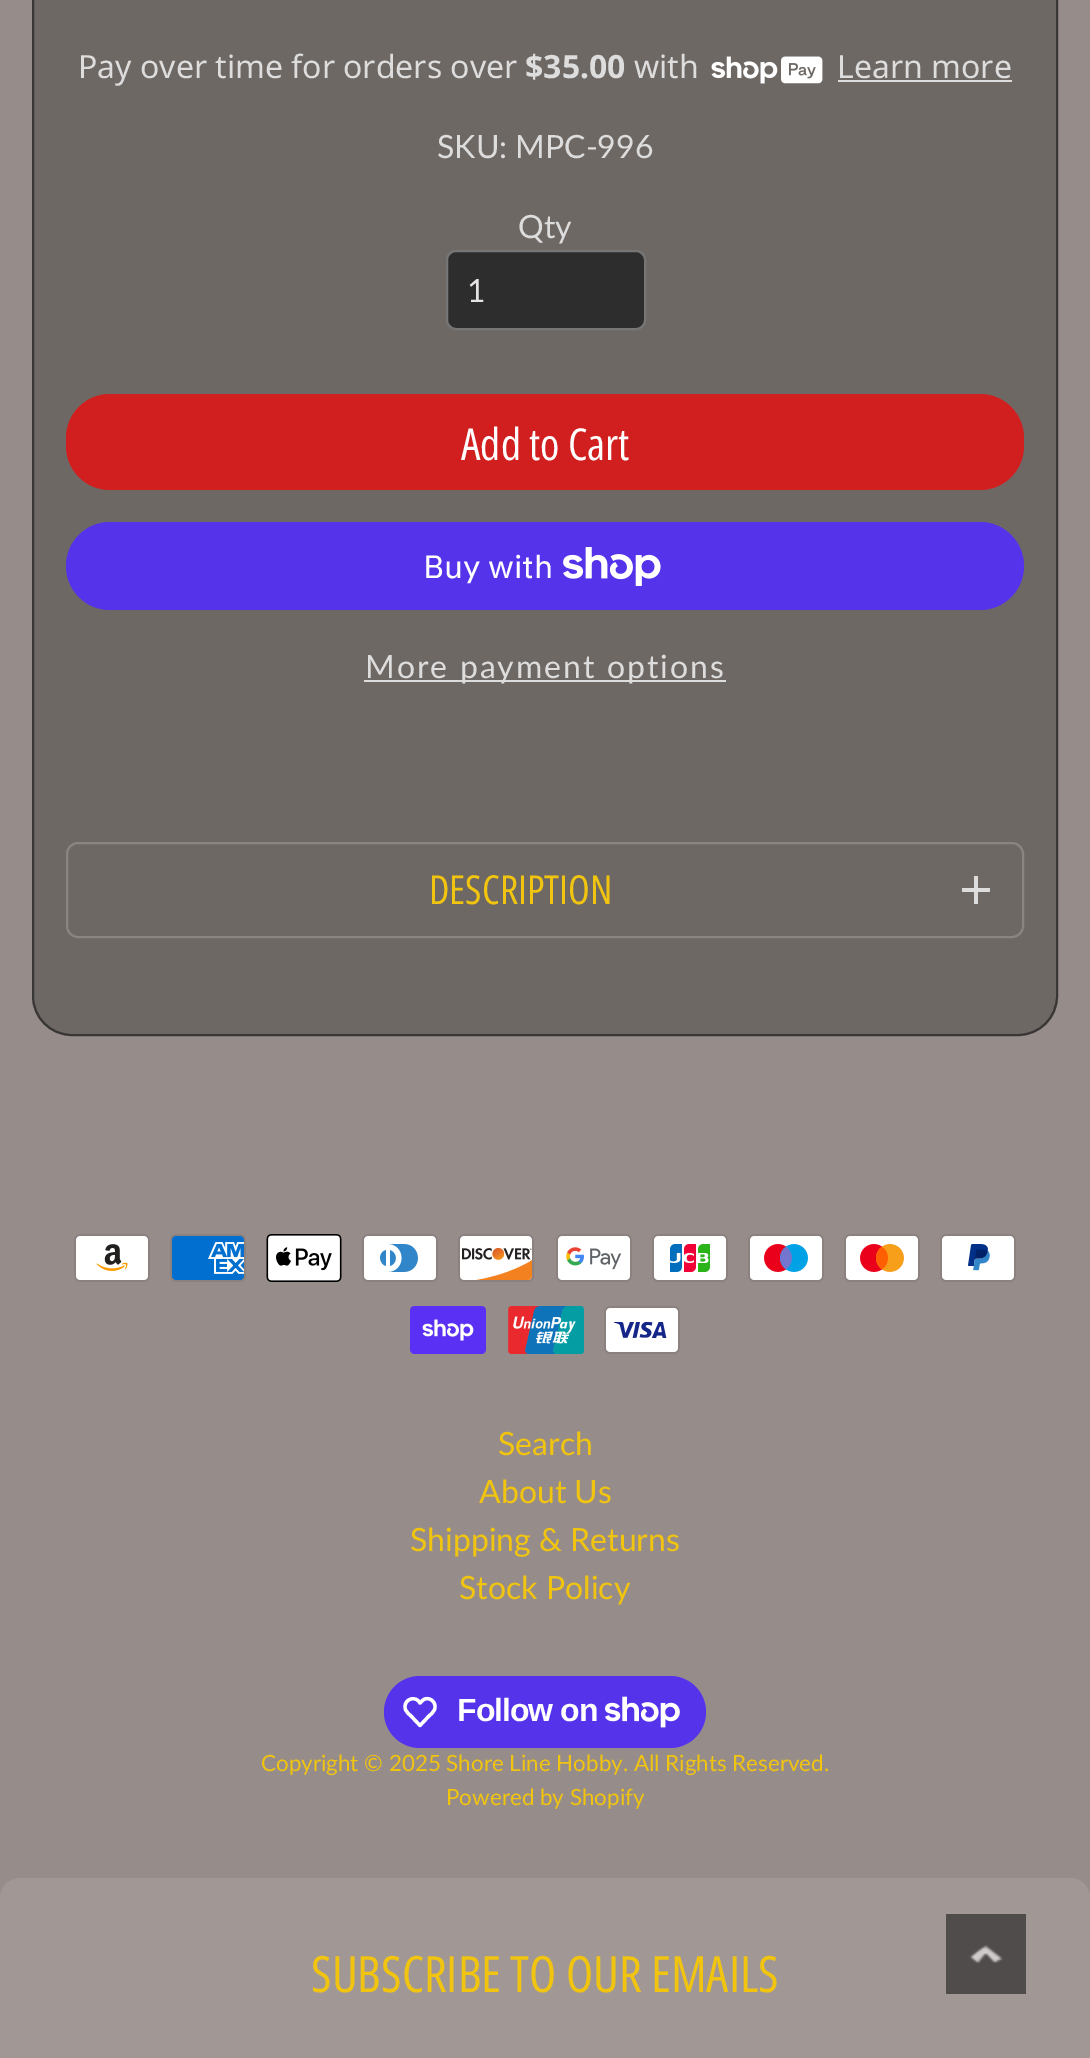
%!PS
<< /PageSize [1090 2058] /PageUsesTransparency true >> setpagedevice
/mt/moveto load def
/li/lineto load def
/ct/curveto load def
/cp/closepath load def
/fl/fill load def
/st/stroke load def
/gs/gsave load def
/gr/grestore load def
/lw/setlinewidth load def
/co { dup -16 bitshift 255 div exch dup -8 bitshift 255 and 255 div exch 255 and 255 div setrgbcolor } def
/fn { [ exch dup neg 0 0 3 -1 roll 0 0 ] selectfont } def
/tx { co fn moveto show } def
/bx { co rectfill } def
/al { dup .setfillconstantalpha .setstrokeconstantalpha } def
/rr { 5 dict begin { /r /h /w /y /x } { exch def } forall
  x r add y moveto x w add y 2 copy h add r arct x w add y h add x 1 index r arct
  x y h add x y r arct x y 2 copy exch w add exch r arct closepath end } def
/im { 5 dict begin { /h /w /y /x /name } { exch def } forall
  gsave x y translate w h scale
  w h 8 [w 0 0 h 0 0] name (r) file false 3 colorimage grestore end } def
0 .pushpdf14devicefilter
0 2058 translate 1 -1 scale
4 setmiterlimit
0 0 1090 2058 16#968C8A bx
16#6E6865 co
32 -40 1026 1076 40 rr fl
0.7 al
16#222222 co
2 lw
33 -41 1024 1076 39 rr st
1 al
(media/1.raw) 711 56 112 28 im
838 80 174 2 16#DDDDDD bx
16#2D2D2D co
447 251 198 78 9 rr gs fl gr
16#767676 co
st
16#D11F1F co
66 394 958 96 44 rr fl
16#5433EB co
66 522 958 88 44 rr fl
(media/2.raw) 563 547 98 39 im
364 680 362 2 16#DDDDDD bx
16#8A8583 co
67 843 956 94 11 rr st
974 876 4 28 16#DDDDDD bx
962 888 28 4 16#DDDDDD bx
(media/3.raw) 74 1234 76 48 im
(media/4.raw) 170 1234 76 48 im
(media/5.raw) 266 1234 76 48 im
(media/6.raw) 362 1234 76 48 im
(media/7.raw) 458 1234 76 48 im
(media/8.raw) 556 1234 76 48 im
(media/9.raw) 652 1234 76 48 im
(media/10.raw) 748 1234 76 48 im
(media/11.raw) 844 1234 76 48 im
(media/12.raw) 940 1234 76 48 im
(media/13.raw) 410 1306 76 48 im
(media/14.raw) 508 1306 76 48 im
(media/15.raw) 604 1306 76 48 im
16#5433EB co
384 1676 322 72 36 rr fl
16#FFFFFF co
3.3 lw
1 setlinejoin
418.5 1701 mt 420 1703 li 421.5 1701.5 423 1699.5 425 1699 ct 431 1697 437 1703.5 434.5 1709.5 ct 433.5 1712.5 430.5 1714.5 428.5 1716.5 ct 420 1725.5 li 411.5 1716.5 li 409.5 1714.5 406.5 1712.5 405.5 1709.5 ct 402.5 1701.5 412.5 1695 418.5 1701 ct cp st
(media/16.raw) 605 1696 75 32 im
16#A19896 co
0 1878 1090 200 20 rr fl
(media/17.raw) 946 1914 80 80 im
(Pay over time for orders over) 78 78 /NotoSans-Regular 32 16#DDDDDD tx
($35.00) 525 78 /NotoSans-Bold 32 16#DDDDDD tx
(with) 634 78 /NotoSans-Regular 32 16#DDDDDD tx
(Learn more) 837 78 /NotoSans-Regular 32 16#DDDDDD tx
(SKU: MPC-996) 437 158 /Lato-Regular 32 16#DDDDDD tx
(Qty) 518 238 /Lato-Regular 32 16#DDDDDD tx
(1) 467 302 /Lato-Regular 32 16#E5E3E3 tx
(Add to Cart) 461 460 /OpenSansCondensed-Regular 44 16#FFFFFF tx
(Buy with) 423 578 /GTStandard-Regular 32 16#FFFFFF tx
/Lato-Regular 32 fn
16#DDDDDD co
365 678 mt 2 0 (More payment options) ashow
(DESCRIPTION) 429 904 /OpenSansCondensed-Regular 40 16#F1C40F tx
(Search) 498 1455 /Lato-Regular 32 16#F1C40F tx
(About Us) 479 1503 /Lato-Regular 32 16#F1C40F tx
(Shipping & Returns) 410 1551 /Lato-Regular 32 16#F1C40F tx
(Stock Policy) 459 1599 /Lato-Regular 32 16#F1C40F tx
/LiberationSans-Bold 32 fn
16#FFFFFF co
457 1721 mt -1 0 (Follow on) ashow
(Copyright © 2025 Shore Line Hobby. All Rights Reserved.) 261 1771 /Lato-Regular 22.4 16#F1C40F tx
(Powered by Shopify) 446 1805 /Lato-Regular 22.4 16#F1C40F tx
(SUBSCRIBE TO OUR EMAILS) 311 1992 /OpenSansCondensed-Regular 50 16#F1C40F tx
.poppdf14devicefilter showpage
